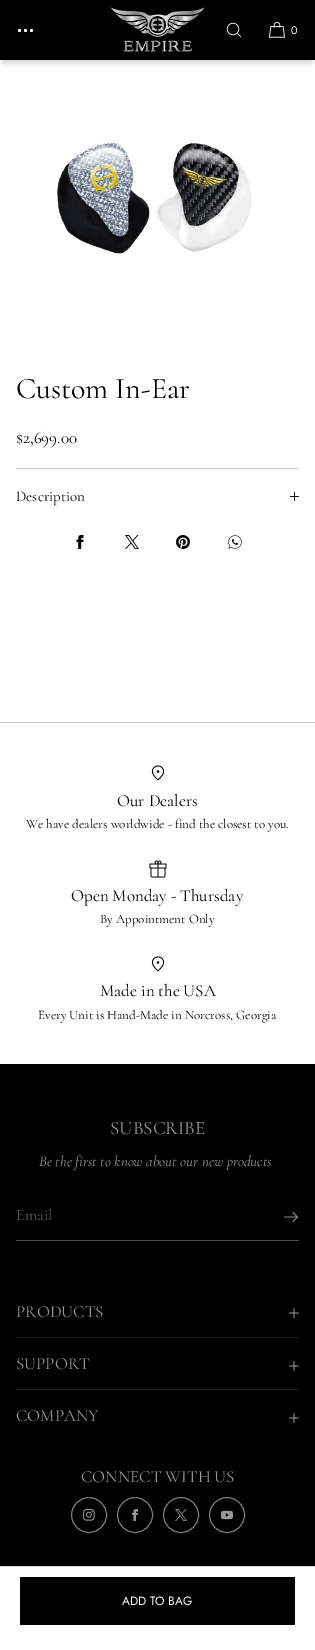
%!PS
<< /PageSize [315 1650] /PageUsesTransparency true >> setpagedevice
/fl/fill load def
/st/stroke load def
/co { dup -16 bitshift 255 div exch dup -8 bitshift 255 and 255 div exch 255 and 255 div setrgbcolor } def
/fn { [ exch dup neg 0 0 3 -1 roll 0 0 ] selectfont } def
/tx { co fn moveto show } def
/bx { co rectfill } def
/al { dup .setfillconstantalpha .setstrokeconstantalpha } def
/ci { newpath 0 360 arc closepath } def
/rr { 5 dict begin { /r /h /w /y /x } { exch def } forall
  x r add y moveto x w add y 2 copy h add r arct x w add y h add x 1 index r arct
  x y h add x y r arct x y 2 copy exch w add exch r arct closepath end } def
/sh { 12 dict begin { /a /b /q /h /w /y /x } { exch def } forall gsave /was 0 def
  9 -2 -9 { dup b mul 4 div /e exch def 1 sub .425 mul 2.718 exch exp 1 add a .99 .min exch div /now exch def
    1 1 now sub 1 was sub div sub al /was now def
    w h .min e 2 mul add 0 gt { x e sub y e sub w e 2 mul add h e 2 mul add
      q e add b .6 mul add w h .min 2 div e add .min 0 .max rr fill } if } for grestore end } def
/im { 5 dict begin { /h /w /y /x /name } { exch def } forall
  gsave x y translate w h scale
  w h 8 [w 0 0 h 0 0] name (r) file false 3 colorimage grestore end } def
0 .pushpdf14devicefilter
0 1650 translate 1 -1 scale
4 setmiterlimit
0 0 315 1650 16#FFFFFF bx
16#000000 co
3 9 309 54 0 3.5 .18 sh
0 0 315 60 16#000000 bx
16#FFFFFF co
19.5 30.5 1.5 ci fl
25.5 30.5 1.5 ci fl
31.5 30.5 1.5 ci fl
(media/1.raw) 111 7 94 45 im
(media/2.raw) 226 22 16 16 im
(media/3.raw) 268 21 18 17 im
(media/4.raw) 57 142 195 112 im
16 468 283 1 16#CCCCCC bx
(media/5.raw) 290 492 9 9 im
(media/6.raw) 76 535 8 14 im
(media/7.raw) 125 535 14 14 im
(media/8.raw) 176 535 14 14 im
(media/9.raw) 228 535 14 14 im
0 1566 315 1 16#D9D9D9 bx
20 1577 275 48 16#000000 bx
0 722 315 1 16#CCCCCC bx
(media/10.raw) 151 765 14 16 im
(media/11.raw) 149 860 18 18 im
(media/10.raw) 151 956 14 16 im
0 1064 315 502 16#000000 bx
16 1240 283 1 16#4D4D4D bx
(media/12.raw) 284 1212 14 10 im
16 1337 283 1 16#1F1F1F bx
(media/13.raw) 289 1308 10 10 im
16 1389 283 1 16#1F1F1F bx
(media/13.raw) 289 1361 10 10 im
(media/13.raw) 289 1413 10 10 im
(media/14.raw) 83 1509 12 12 im
16#7A7A7A co
89 1515 17.5 ci st
(media/15.raw) 132 1509 6 12 im
135 1515 17.5 ci st
(media/16.raw) 175 1509 12 12 im
181 1515 17.5 ci st
(media/17.raw) 221 1510 12 10 im
227 1515 17.5 ci st
(0) 291 34 /Jost-Regular 11 16#FFFFFF tx
(Custom In-Ear) 16 398 /Cormorant-Regular 30 16#000000 tx
($2,699.00) 16 443 /Cormorant-Regular 17 16#000000 tx
(Description) 16 501 /Cormorant-Regular 15 16#000000 tx
(ADD TO BAG) 122 1605 /Jost-Regular 12 16#FFFFFF tx
(Our Dealers) 117 806 /Cormorant-Regular 17 16#000000 tx
(We have dealers worldwide - find the closest to you.) 26 828 /Cormorant-Regular 13 16#000000 tx
(Open Monday - Thursday) 71 901 /Cormorant-Regular 17 16#000000 tx
(By Appointment Only) 100 923 /Cormorant-Regular 13 16#000000 tx
(Made in the USA) 100 996 /Cormorant-Regular 17 16#000000 tx
(Every Unit is Hand-Made in Norcross, Georgia) 38 1019 /Cormorant-Regular 13 16#000000 tx
(SUBSCRIBE) 110 1134 /Cormorant-Regular 19 16#999999 tx
(Be the first to know about our new products) 39 1166 /Cormorant-Italic 15 16#999999 tx
(Email) 16 1220 /Cormorant-Regular 16 16#5C5C5C tx
(PRODUCTS) 16 1317 /Cormorant-Regular 17 16#999999 tx
(SUPPORT) 16 1369 /Cormorant-Regular 17 16#999999 tx
(COMPANY) 16 1421 /Cormorant-Regular 17 16#999999 tx
(CONNECT WITH US) 81 1482 /Cormorant-Regular 17 16#999999 tx
.poppdf14devicefilter showpage
